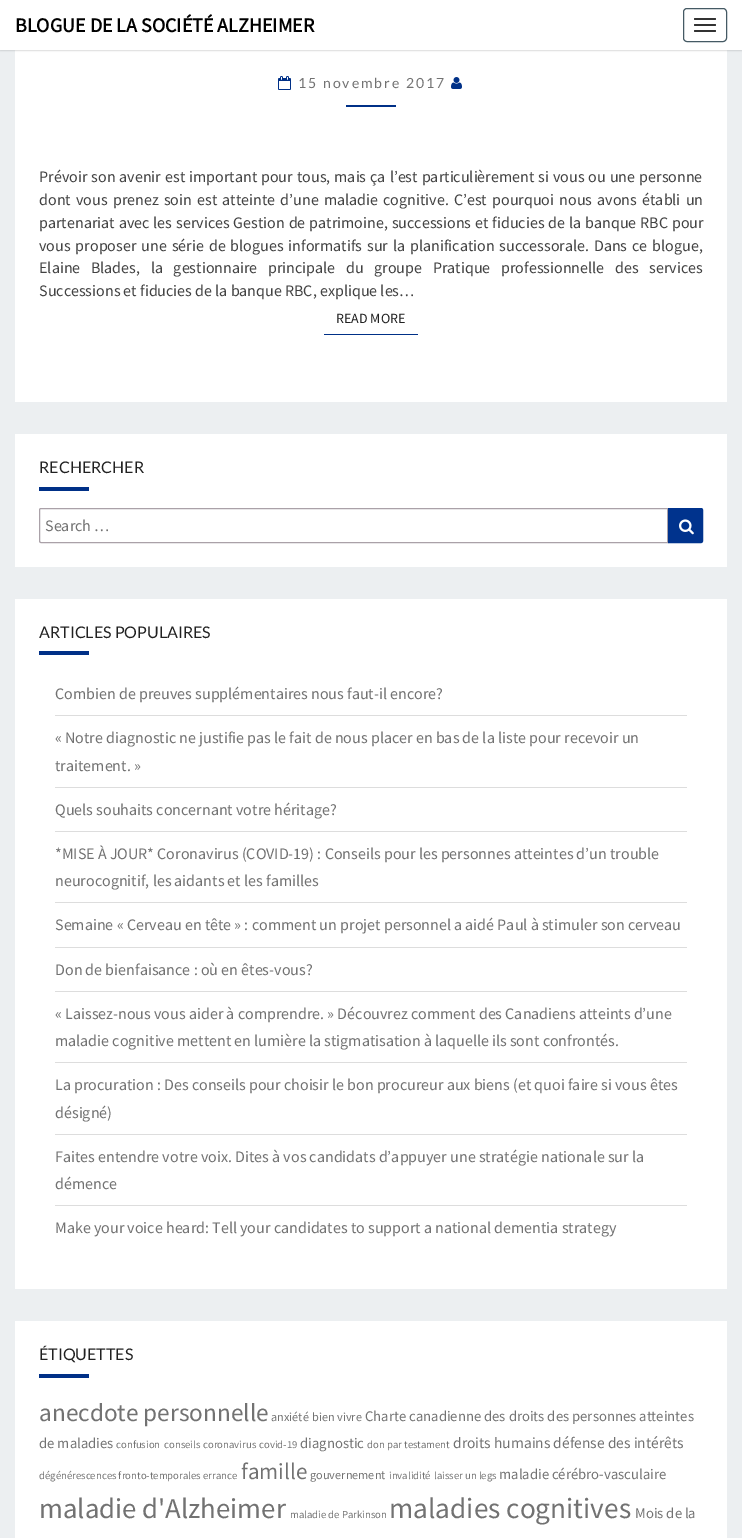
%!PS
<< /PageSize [742 1538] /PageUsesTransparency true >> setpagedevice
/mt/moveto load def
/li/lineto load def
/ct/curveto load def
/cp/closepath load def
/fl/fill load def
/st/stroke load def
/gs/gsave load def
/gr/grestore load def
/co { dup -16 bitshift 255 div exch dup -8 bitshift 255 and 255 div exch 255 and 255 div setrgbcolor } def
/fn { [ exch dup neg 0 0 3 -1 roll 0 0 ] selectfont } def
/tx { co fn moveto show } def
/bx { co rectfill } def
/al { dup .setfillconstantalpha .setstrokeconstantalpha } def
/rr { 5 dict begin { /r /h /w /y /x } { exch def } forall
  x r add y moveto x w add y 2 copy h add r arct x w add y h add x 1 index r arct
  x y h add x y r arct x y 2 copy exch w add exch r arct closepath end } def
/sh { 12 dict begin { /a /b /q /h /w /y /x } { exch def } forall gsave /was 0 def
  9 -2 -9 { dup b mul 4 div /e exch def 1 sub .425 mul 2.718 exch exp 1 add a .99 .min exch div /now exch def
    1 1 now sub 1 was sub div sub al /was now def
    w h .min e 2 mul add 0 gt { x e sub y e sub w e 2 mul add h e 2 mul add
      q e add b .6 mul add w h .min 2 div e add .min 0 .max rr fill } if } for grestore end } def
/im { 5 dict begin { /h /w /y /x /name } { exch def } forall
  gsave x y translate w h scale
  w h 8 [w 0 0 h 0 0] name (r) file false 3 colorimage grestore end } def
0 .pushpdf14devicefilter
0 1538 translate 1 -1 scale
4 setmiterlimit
0 0 742 1538 16#ECEFF1 bx
15 50 712 352 16#FFFFFF bx
16#646464 co
0 1 742 50 0 .5 .2 sh
0 0 742 50 16#FFFFFF bx
16#455A64 co
683.5 8.5 43 33 3.5 rr st
16#333333 co
694 18 22 2 1 rr fl
694 24 22 2 1 rr fl
694 30 22 2 1 rr fl
(media/1.raw) 278 76 13 14 im
(media/2.raw) 451 77 11 12 im
346 105 50 2 16#003087 bx
324 334 94 1 16#003087 bx
15 434 712 133 16#FFFFFF bx
39 487 50 4 16#003087 bx
16#AAA1A8 co
41 508.5 mt 667.5 508.5 li 667.5 542.5 li 41 542.5 li 40 542.5 39.5 542 39.5 541 ct 39.5 510 li 39.5 509 40 508.5 41 508.5 ct cp st
16#00338D co
668.5 508.5 mt 701 508.5 li 702 508.5 702.5 509 702.5 510 ct 702.5 541 li 702.5 542 702 542.5 701 542.5 ct 668.5 542.5 li cp gs fl gr
st
(media/3.raw) 679 519 15 16 im
15 599 712 690 16#FFFFFF bx
39 651 50 4 16#003087 bx
55 715 632 1 16#DDDDDD bx
55 787 632 1 16#DDDDDD bx
55 831 632 1 16#DDDDDD bx
55 902 632 1 16#DDDDDD bx
55 947 632 1 16#DDDDDD bx
55 991 632 1 16#DDDDDD bx
55 1062 632 1 16#DDDDDD bx
55 1134 632 1 16#DDDDDD bx
55 1205 632 1 16#DDDDDD bx
15 1321 712 217 16#FFFFFF bx
39 1374 50 4 16#003087 bx
(BLOGUE DE LA SOCIÉTÉ ALZHEIMER) 15 32 /SourceSansPro-Bold 20 16#000000 tx
/Lato-Regular 14 fn
16#727272 co
298 88 mt 2 0 (15 novembre 2017) ashow
/SourceSansPro-Regular 16 fn
16#424242 co
39 182 mt .8 0 32 (Prévoir son avenir est important pour tous, mais ça l’est particulièrement si vous ou une personne) widthshow
39 205 mt 2 0 32 (dont vous prenez soin est atteinte d’une maladie cognitive. C’est pourquoi nous avons établi un) widthshow
39 228 mt .75 0 32 (partenariat avec les services Gestion de patrimoine, successions et fiducies de la banque RBC pour) widthshow
39 251 mt 1.75 0 32 (vous proposer une série de blogues informatifs sur la planification successorale. Dans ce blogue,) widthshow
39 273 mt 7.5 0 32 (Elaine Blades, la gestionnaire principale du groupe Pratique professionnelle des services) widthshow
(Successions et fiducies de la banque RBC, explique les…) 39 296 /SourceSansPro-Regular 16 16#424242 tx
(READ MORE) 336 323 /SourceSansPro-Regular 14 16#212121 tx
(RECHERCHER) 39 473 /Lato-Regular 16 16#212121 tx
(Search …) 45 531 /SourceSansPro-Regular 16 16#727272 tx
(ARTICLES POPULAIRES) 39 638 /Lato-Regular 16 16#212121 tx
(Combien de preuves supplémentaires nous faut-il encore?) 55 699 /SourceSansPro-Regular 16 16#727272 tx
(« Notre diagnostic ne justifie pas le fait de nous placer en bas de la liste pour recevoir un) 55 743 /SourceSansPro-Regular 16 16#727272 tx
(traitement. ») 55 771 /SourceSansPro-Regular 16 16#727272 tx
(Quels souhaits concernant votre héritage?) 55 815 /SourceSansPro-Regular 16 16#727272 tx
(*MISE À JOUR* Coronavirus \(COVID-19\) : Conseils pour les personnes atteintes d’un trouble) 55 859 /SourceSansPro-Regular 16 16#727272 tx
(neurocognitif, les aidants et les familles) 55 886 /SourceSansPro-Regular 16 16#727272 tx
(Semaine « Cerveau en tête » : comment un projet personnel a aidé Paul à stimuler son cerveau) 55 930 /SourceSansPro-Regular 16 16#727272 tx
(Don de bienfaisance : où en êtes-vous?) 55 975 /SourceSansPro-Regular 16 16#727272 tx
(« Laissez-nous vous aider à comprendre. » Découvrez comment des Canadiens atteints d’une) 55 1019 /SourceSansPro-Regular 16 16#727272 tx
(maladie cognitive mettent en lumière la stigmatisation à laquelle ils sont confrontés.) 55 1046 /SourceSansPro-Regular 16 16#727272 tx
(La procuration : Des conseils pour choisir le bon procureur aux biens \(et quoi faire si vous êtes) 55 1090 /SourceSansPro-Regular 16 16#727272 tx
(désigné\)) 55 1118 /SourceSansPro-Regular 16 16#727272 tx
(Faites entendre votre voix. Dites à vos candidats d’appuyer une stratégie nationale sur la) 55 1162 /SourceSansPro-Regular 16 16#727272 tx
(démence) 55 1189 /SourceSansPro-Regular 16 16#727272 tx
(Make your voice heard: Tell your candidates to support a national dementia strategy) 55 1233 /SourceSansPro-Regular 16 16#727272 tx
(ÉTIQUETTES) 39 1360 /Lato-Regular 16 16#212121 tx
(anecdote personnelle) 39 1421 /SourceSansPro-Regular 25.25 16#727272 tx
(anxiété) 271 1421 /SourceSansPro-Regular 12.25 16#727272 tx
(bien vivre) 312 1421 /SourceSansPro-Regular 12.25 16#727272 tx
(Charte canadienne des droits des personnes atteintes) 365 1421 /SourceSansPro-Regular 14.7 16#727272 tx
(de maladies) 39 1448 /SourceSansPro-Regular 14.7 16#727272 tx
(confusion) 116 1448 /SourceSansPro-Regular 10.7 16#727272 tx
(conseils) 164 1448 /SourceSansPro-Regular 10.7 16#727272 tx
(coronavirus) 203 1448 /SourceSansPro-Regular 10.7 16#727272 tx
(covid-19) 259 1448 /SourceSansPro-Regular 10.7 16#727272 tx
(diagnostic) 300 1448 /SourceSansPro-Regular 14.7 16#727272 tx
(don par testament) 367 1448 /SourceSansPro-Regular 10.7 16#727272 tx
(droits humains défense des intérêts) 453 1448 /SourceSansPro-Regular 15.5 16#727272 tx
(dégénérescences fronto-temporales) 39 1479 /SourceSansPro-Regular 10.7 16#727272 tx
(errance) 203 1479 /SourceSansPro-Regular 10.7 16#727272 tx
(famille) 241 1479 /SourceSansPro-Regular 23 16#727272 tx
(gouvernement) 310 1479 /SourceSansPro-Regular 12.25 16#727272 tx
(invalidité) 389 1479 /SourceSansPro-Regular 10.7 16#727272 tx
(laisser un legs) 434 1479 /SourceSansPro-Regular 10.7 16#727272 tx
(maladie cérébro-vasculaire) 499 1479 /SourceSansPro-Regular 14.7 16#727272 tx
(maladie d'Alzheimer) 39 1518 /SourceSansPro-Regular 28.75 16#727272 tx
(maladie de Parkinson) 290 1518 /SourceSansPro-Regular 10.7 16#727272 tx
(maladies cognitives) 389 1518 /SourceSansPro-Regular 29.25 16#727272 tx
(Mois de la) 635 1518 /SourceSansPro-Regular 14.7 16#727272 tx
.poppdf14devicefilter showpage
